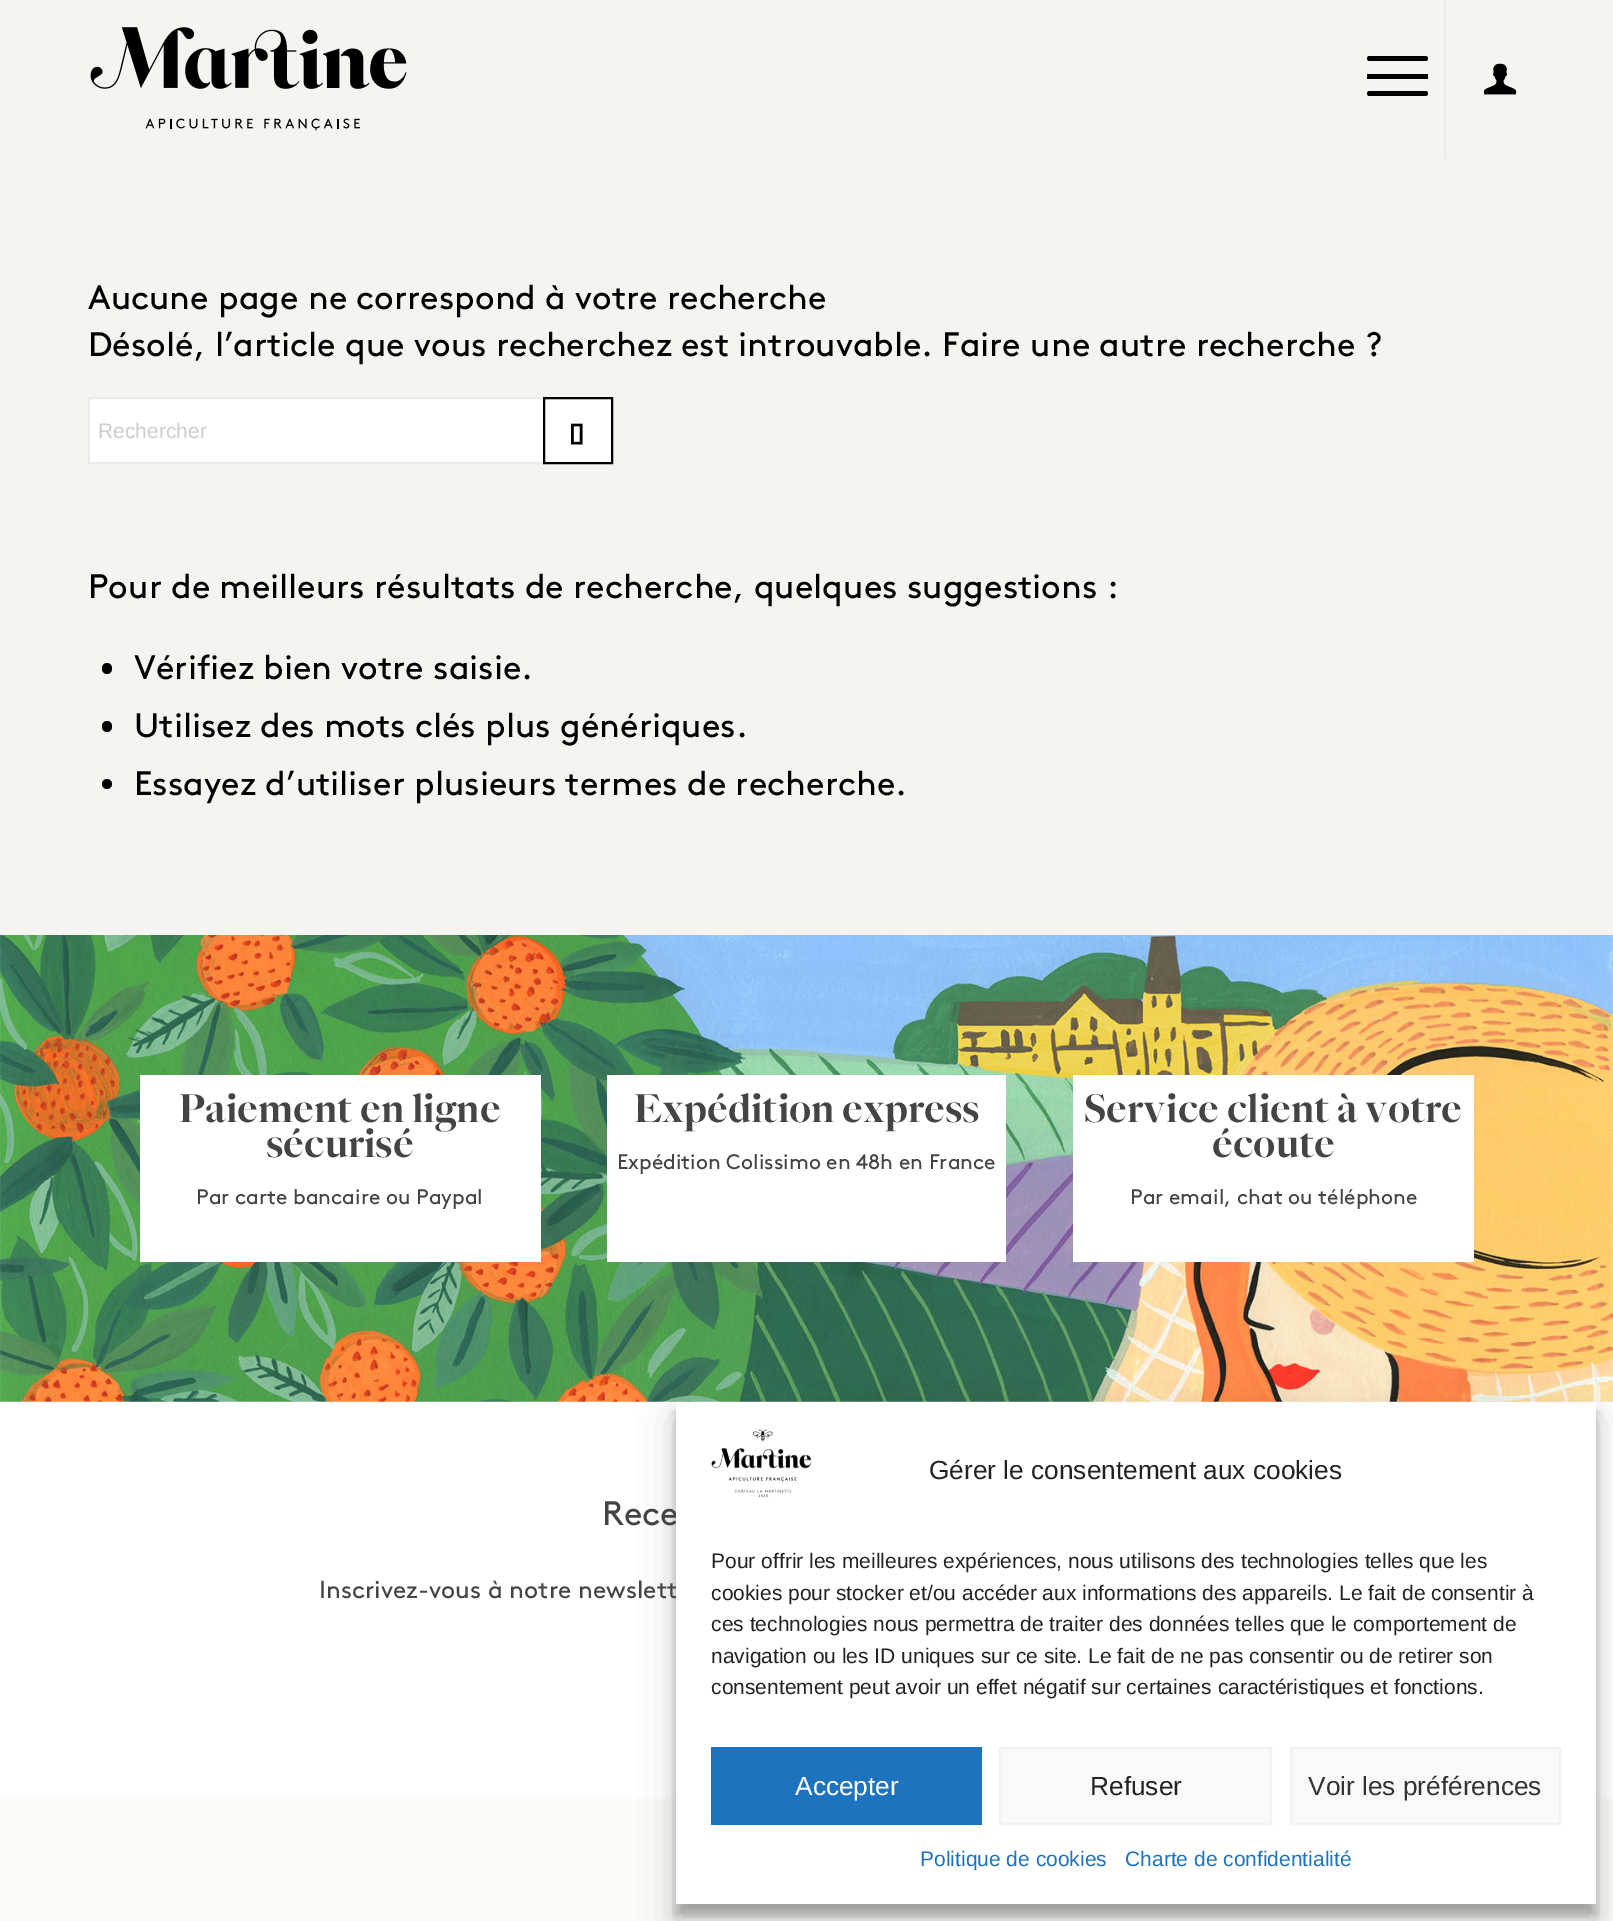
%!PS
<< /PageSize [1613 1921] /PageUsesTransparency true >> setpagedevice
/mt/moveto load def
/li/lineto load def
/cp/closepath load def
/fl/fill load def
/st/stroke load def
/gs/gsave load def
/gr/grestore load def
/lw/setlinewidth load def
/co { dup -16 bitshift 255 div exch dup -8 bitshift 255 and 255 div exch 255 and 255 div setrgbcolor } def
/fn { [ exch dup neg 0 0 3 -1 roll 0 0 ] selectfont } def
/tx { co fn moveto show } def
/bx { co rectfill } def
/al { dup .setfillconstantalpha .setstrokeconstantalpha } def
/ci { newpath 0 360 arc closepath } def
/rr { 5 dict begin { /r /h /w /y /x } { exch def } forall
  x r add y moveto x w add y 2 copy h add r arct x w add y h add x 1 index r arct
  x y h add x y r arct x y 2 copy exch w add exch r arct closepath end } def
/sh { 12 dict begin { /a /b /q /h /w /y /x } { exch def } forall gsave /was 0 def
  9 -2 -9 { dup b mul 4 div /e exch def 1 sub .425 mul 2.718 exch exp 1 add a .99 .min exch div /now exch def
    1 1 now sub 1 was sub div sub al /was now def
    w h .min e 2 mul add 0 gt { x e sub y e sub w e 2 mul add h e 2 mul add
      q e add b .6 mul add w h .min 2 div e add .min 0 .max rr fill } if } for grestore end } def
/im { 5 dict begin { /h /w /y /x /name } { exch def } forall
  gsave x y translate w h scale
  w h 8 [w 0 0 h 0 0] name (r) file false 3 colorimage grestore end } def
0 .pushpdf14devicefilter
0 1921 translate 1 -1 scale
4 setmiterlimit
0 0 1613 1921 16#FFFFFF bx
0 0 1613 935 16#F5F4F1 bx
(media/1.raw) 90 27 317 104 im
1444 0 2 158 16#EBEBEB bx
1367 74 61 5 16#000000 bx
1367 56 61 5 2.5 rr fl
1367 91 61 5 2.5 rr fl
(media/2.raw) 1484 63 33 32 im
16#FFFFFF co
89 398 mt 612 398 li 612 463 li 89 463 li cp gs fl gr
16#EBEBEB co
2 lw
st
16#000000 co
544 398 68 65 rectstroke
(media/3.raw) 571 423 12 22 im
102 663 10 11 5 rr fl
102 721 10 11 5 rr fl
107 784 5 ci fl
(media/4.raw) 0 935 1613 467 im
140 1075 401 187 16#FFFFFF bx
607 1075 399 187 16#FFFFFF bx
1073 1075 401 187 16#FFFFFF bx
0 1799 1613 122 16#FBFAF5 bx
16#000000 co
676 1412 920 503 0 5 .23 sh
676 1419 920 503 0 17.5 .19 sh
(Aucune page ne correspond à votre recherche) 88 309 /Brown-Regular 34.1 16#000000 tx
(Désolé, l’article que vous recherchez est introuvable. Faire une autre recherche ?) 88 356 /Brown-Regular 34.1 16#000000 tx
(Rechercher) 98 438 /LiberationSans-Regular 21 16#CCCCCC tx
(Pour de meilleurs résultats de recherche, quelques suggestions :) 88 598 /Brown-Regular 34.1 16#000000 tx
(Vérifiez bien votre saisie.) 134 679 /Brown-Regular 34.1 16#000000 tx
(Utilisez des mots clés plus génériques.) 134 737 /Brown-Regular 34.1 16#000000 tx
(Essayez d’utiliser plusieurs termes de recherche.) 134 795 /Brown-Regular 34.1 16#000000 tx
(Paiement en ligne) 179 1122 /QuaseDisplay-Bold 38.5 16#444444 tx
(sécurisé) 266 1157 /QuaseDisplay-Bold 38.5 16#444444 tx
(Par carte bancaire ou Paypal) 196 1204 /Brown-Regular 21 16#444444 tx
(Expédition express) 634 1122 /QuaseDisplay-Bold 38.5 16#444444 tx
(Expédition Colissimo en 48h en France) 617 1169 /Brown-Regular 21 16#444444 tx
(Service client à votre) 1084 1122 /QuaseDisplay-Bold 38.5 16#444444 tx
(écoute) 1212 1157 /QuaseDisplay-Bold 38.5 16#444444 tx
(Par email, chat ou téléphone) 1130 1204 /Brown-Regular 21 16#444444 tx
(Rece) 602 1525 /Brown-Regular 34.1 16#444444 tx
(Inscrivez-vous à notre newslett) 319 1598 /Brown-Regular 24.5 16#444444 tx
676 1402 920 502 16#FFFFFF bx
(media/5.raw) 711 1429 101 69 im
(Gérer le consentement aux cookies) 929 1479 /LiberationSans-Regular 26.25 16#222222 tx
(Pour offrir les meilleures expériences, nous utilisons des technologies telles que les) 711 1568 /LiberationSans-Regular 21 16#222222 tx
(cookies pour stocker et/ou accéder aux informations des appareils. Le fait de consentir à) 711 1600 /LiberationSans-Regular 21 16#222222 tx
(ces technologies nous permettra de traiter des données telles que le comportement de) 711 1631 /LiberationSans-Regular 21 16#222222 tx
(navigation ou les ID uniques sur ce site. Le fait de ne pas consentir ou de retirer son) 711 1663 /LiberationSans-Regular 21 16#222222 tx
(consentement peut avoir un effet négatif sur certaines caractéristiques et fonctions.) 711 1694 /LiberationSans-Regular 21 16#222222 tx
711 1747 271 78 16#1E73BE bx
(Accepter) 795 1795 /LiberationSans-Regular 26.25 16#FFFFFF tx
16#F9F9F9 co
1000 1748 mt 1271 1748 li 1271 1824 li 1000 1824 li cp gs fl gr
16#F2F2F2 co
st
(Refuser) 1090 1795 /LiberationSans-Regular 26.25 16#222222 tx
16#F9F9F9 co
1291 1748 mt 1560 1748 li 1560 1824 li 1291 1824 li cp gs fl gr
16#F2F2F2 co
st
(Voir les préférences) 1308 1795 /LiberationSans-Regular 26.25 16#333333 tx
(Politique de cookies) 920 1866 /LiberationSans-Regular 21 16#1E73BE tx
(Charte de confidentialité) 1125 1866 /LiberationSans-Regular 21 16#1E73BE tx
.poppdf14devicefilter showpage
